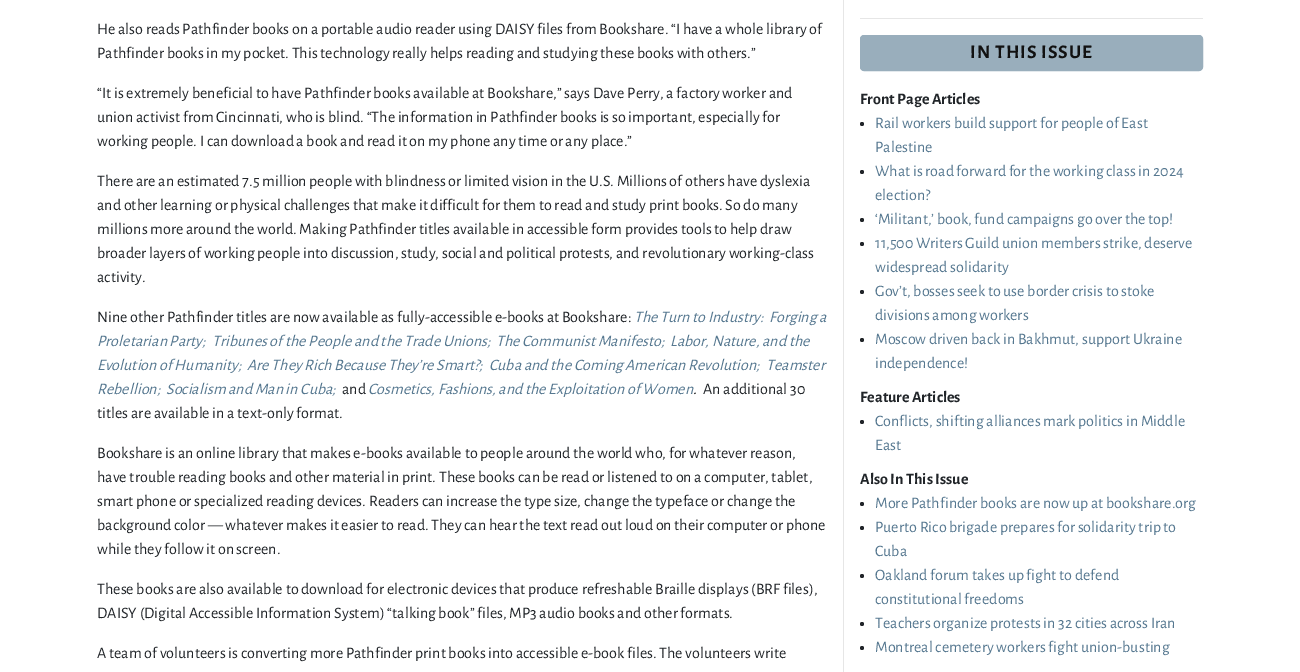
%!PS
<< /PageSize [1300 672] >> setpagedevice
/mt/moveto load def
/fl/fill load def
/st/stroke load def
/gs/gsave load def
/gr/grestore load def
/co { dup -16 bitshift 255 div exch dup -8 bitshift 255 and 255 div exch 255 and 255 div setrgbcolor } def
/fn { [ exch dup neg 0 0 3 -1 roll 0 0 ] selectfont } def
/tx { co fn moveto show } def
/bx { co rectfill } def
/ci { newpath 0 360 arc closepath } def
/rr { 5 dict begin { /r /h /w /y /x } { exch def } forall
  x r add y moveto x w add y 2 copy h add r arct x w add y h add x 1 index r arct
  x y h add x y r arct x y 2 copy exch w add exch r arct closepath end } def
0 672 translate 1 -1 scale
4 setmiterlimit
0 0 1300 672 16#FFFFFF bx
843 0 1 672 16#E6E6E6 bx
860 18 343 1 16#E6E6E6 bx
16#99AEBC co
860.5 35.5 342 35 3.5 rr gs fl gr
st
16#212529 co
862 124 2 ci fl
862 172 2 ci fl
862 220 2 ci fl
862 244 2 ci fl
862 292 2 ci fl
862 340 2 ci fl
862 422 2 ci fl
862 504 2 ci fl
862 528 2 ci fl
862 576 2 ci fl
862 624 2 ci fl
862 648 2 ci fl
(He also reads Pathfinder books on a portable audio reader using DAISY files from Bookshare. “I have a whole library of) 97 34 /AlegreyaSans-Regular 16 16#212529 tx
(Pathfinder books in my pocket. This technology really helps reading and studying these books with others.”) 97 58 /AlegreyaSans-Regular 16 16#212529 tx
(“It is extremely beneficial to have Pathfinder books available at Bookshare,” says Dave Perry, a factory worker and) 97 98 /AlegreyaSans-Regular 16 16#212529 tx
(union activist from Cincinnati, who is blind. “The information in Pathfinder books is so important, especially for) 97 122 /AlegreyaSans-Regular 16 16#212529 tx
(working people. I can download a book and read it on my phone any time or any place.”) 97 146 /AlegreyaSans-Regular 16 16#212529 tx
(There are an estimated 7.5 million people with blindness or limited vision in the U.S. Millions of others have dyslexia) 97 186 /AlegreyaSans-Regular 16 16#212529 tx
(and other learning or physical challenges that make it difficult for them to read and study print books. So do many) 97 210 /AlegreyaSans-Regular 16 16#212529 tx
(millions more around the world. Making Pathfinder titles available in accessible form provides tools to help draw) 97 234 /AlegreyaSans-Regular 16 16#212529 tx
(broader layers of working people into discussion, study, social and political protests, and revolutionary working-class) 97 258 /AlegreyaSans-Regular 16 16#212529 tx
(activity.) 97 282 /AlegreyaSans-Regular 16 16#212529 tx
(Nine other Pathfinder titles are now available as fully-accessible e-books at Bookshare:) 97 322 /AlegreyaSans-Regular 16 16#212529 tx
(The Turn to Industry:  Forging a) 634 322 /AlegreyaSans-Italic 16 16#567890 tx
(Proletarian Party;) 97 346 /AlegreyaSans-Italic 16 16#567890 tx
(Tribunes of the People and the Trade Unions;) 212 346 /AlegreyaSans-Italic 16 16#567890 tx
(The Communist Manifesto;) 496 346 /AlegreyaSans-Italic 16 16#567890 tx
(Labor, Nature, and the) 670 346 /AlegreyaSans-Italic 16 16#567890 tx
(Evolution of Humanity;) 97 370 /AlegreyaSans-Italic 16 16#567890 tx
(Are They Rich Because They’re Smart?;) 247 370 /AlegreyaSans-Italic 16 16#567890 tx
(Cuba and the Coming American Revolution;) 489 370 /AlegreyaSans-Italic 16 16#567890 tx
(Teamster) 766 370 /AlegreyaSans-Italic 16 16#567890 tx
(Rebellion;) 97 394 /AlegreyaSans-Italic 16 16#567890 tx
(Socialism and Man in Cuba;) 166 394 /AlegreyaSans-Italic 16 16#567890 tx
(and) 342 394 /AlegreyaSans-Regular 16 16#212529 tx
(Cosmetics, Fashions, and the Exploitation of Women) 368 394 /AlegreyaSans-Italic 16 16#567890 tx
(.) 693 394 /AlegreyaSans-Italic 16 16#000000 tx
(An additional 30) 703 394 /AlegreyaSans-Regular 16 16#212529 tx
(titles are available in a text-only format.) 97 418 /AlegreyaSans-Regular 16 16#212529 tx
(Bookshare is an online library that makes e-books available to people around the world who, for whatever reason,) 97 458 /AlegreyaSans-Regular 16 16#212529 tx
(have trouble reading books and other material in print. These books can be read or listened to on a computer, tablet,) 97 482 /AlegreyaSans-Regular 16 16#212529 tx
(smart phone or specialized reading devices. Readers can increase the type size, change the typeface or change the) 97 506 /AlegreyaSans-Regular 16 16#212529 tx
(background color — whatever makes it easier to read. They can hear the text read out loud on their computer or phone) 97 530 /AlegreyaSans-Regular 16 16#212529 tx
(while they follow it on screen.) 97 554 /AlegreyaSans-Regular 16 16#212529 tx
(These books are also available to download for electronic devices that produce refreshable Braille displays \(BRF files\),) 97 594 /AlegreyaSans-Regular 16 16#212529 tx
(DAISY \(Digital Accessible Information System\) “talking book” files, MP3 audio books and other formats.) 97 618 /AlegreyaSans-Regular 16 16#212529 tx
(A team of volunteers is converting more Pathfinder print books into accessible e-book files. The volunteers write) 97 658 /AlegreyaSans-Regular 16 16#212529 tx
/AlegreyaSans-Bold 19.25 fn
16#111111 co
970 58 mt 1 0 (IN THIS ISSUE) ashow
(Front Page Articles) 860 104 /AlegreyaSans-Bold 16 16#212529 tx
(Rail workers build support for people of East) 875 128 /AlegreyaSans-Regular 16 16#567890 tx
(Palestine) 875 152 /AlegreyaSans-Regular 16 16#567890 tx
(What is road forward for the working class in 2024) 875 176 /AlegreyaSans-Regular 16 16#567890 tx
(election?) 875 200 /AlegreyaSans-Regular 16 16#567890 tx
(‘Militant,’ book, fund campaigns go over the top!) 875 224 /AlegreyaSans-Regular 16 16#567890 tx
(11,500 Writers Guild union members strike, deserve) 875 248 /AlegreyaSans-Regular 16 16#567890 tx
(widespread solidarity) 875 272 /AlegreyaSans-Regular 16 16#567890 tx
(Gov’t, bosses seek to use border crisis to stoke) 875 296 /AlegreyaSans-Regular 16 16#567890 tx
(divisions among workers) 875 320 /AlegreyaSans-Regular 16 16#567890 tx
(Moscow driven back in Bakhmut, support Ukraine) 875 344 /AlegreyaSans-Regular 16 16#567890 tx
(independence!) 875 368 /AlegreyaSans-Regular 16 16#567890 tx
(Feature Articles) 860 402 /AlegreyaSans-Bold 16 16#212529 tx
(Conflicts, shifting alliances mark politics in Middle) 875 426 /AlegreyaSans-Regular 16 16#567890 tx
(East) 875 450 /AlegreyaSans-Regular 16 16#567890 tx
(Also In This Issue) 860 484 /AlegreyaSans-Bold 16 16#212529 tx
(More Pathfinder books are now up at bookshare.org) 875 508 /AlegreyaSans-Regular 16 16#567890 tx
(Puerto Rico brigade prepares for solidarity trip to) 875 532 /AlegreyaSans-Regular 16 16#567890 tx
(Cuba) 875 556 /AlegreyaSans-Regular 16 16#567890 tx
(Oakland forum takes up fight to defend) 875 580 /AlegreyaSans-Regular 16 16#567890 tx
(constitutional freedoms) 875 604 /AlegreyaSans-Regular 16 16#567890 tx
(Teachers organize protests in 32 cities across Iran) 875 628 /AlegreyaSans-Regular 16 16#567890 tx
(Montreal cemetery workers fight union-busting) 875 652 /AlegreyaSans-Regular 16 16#567890 tx
showpage
